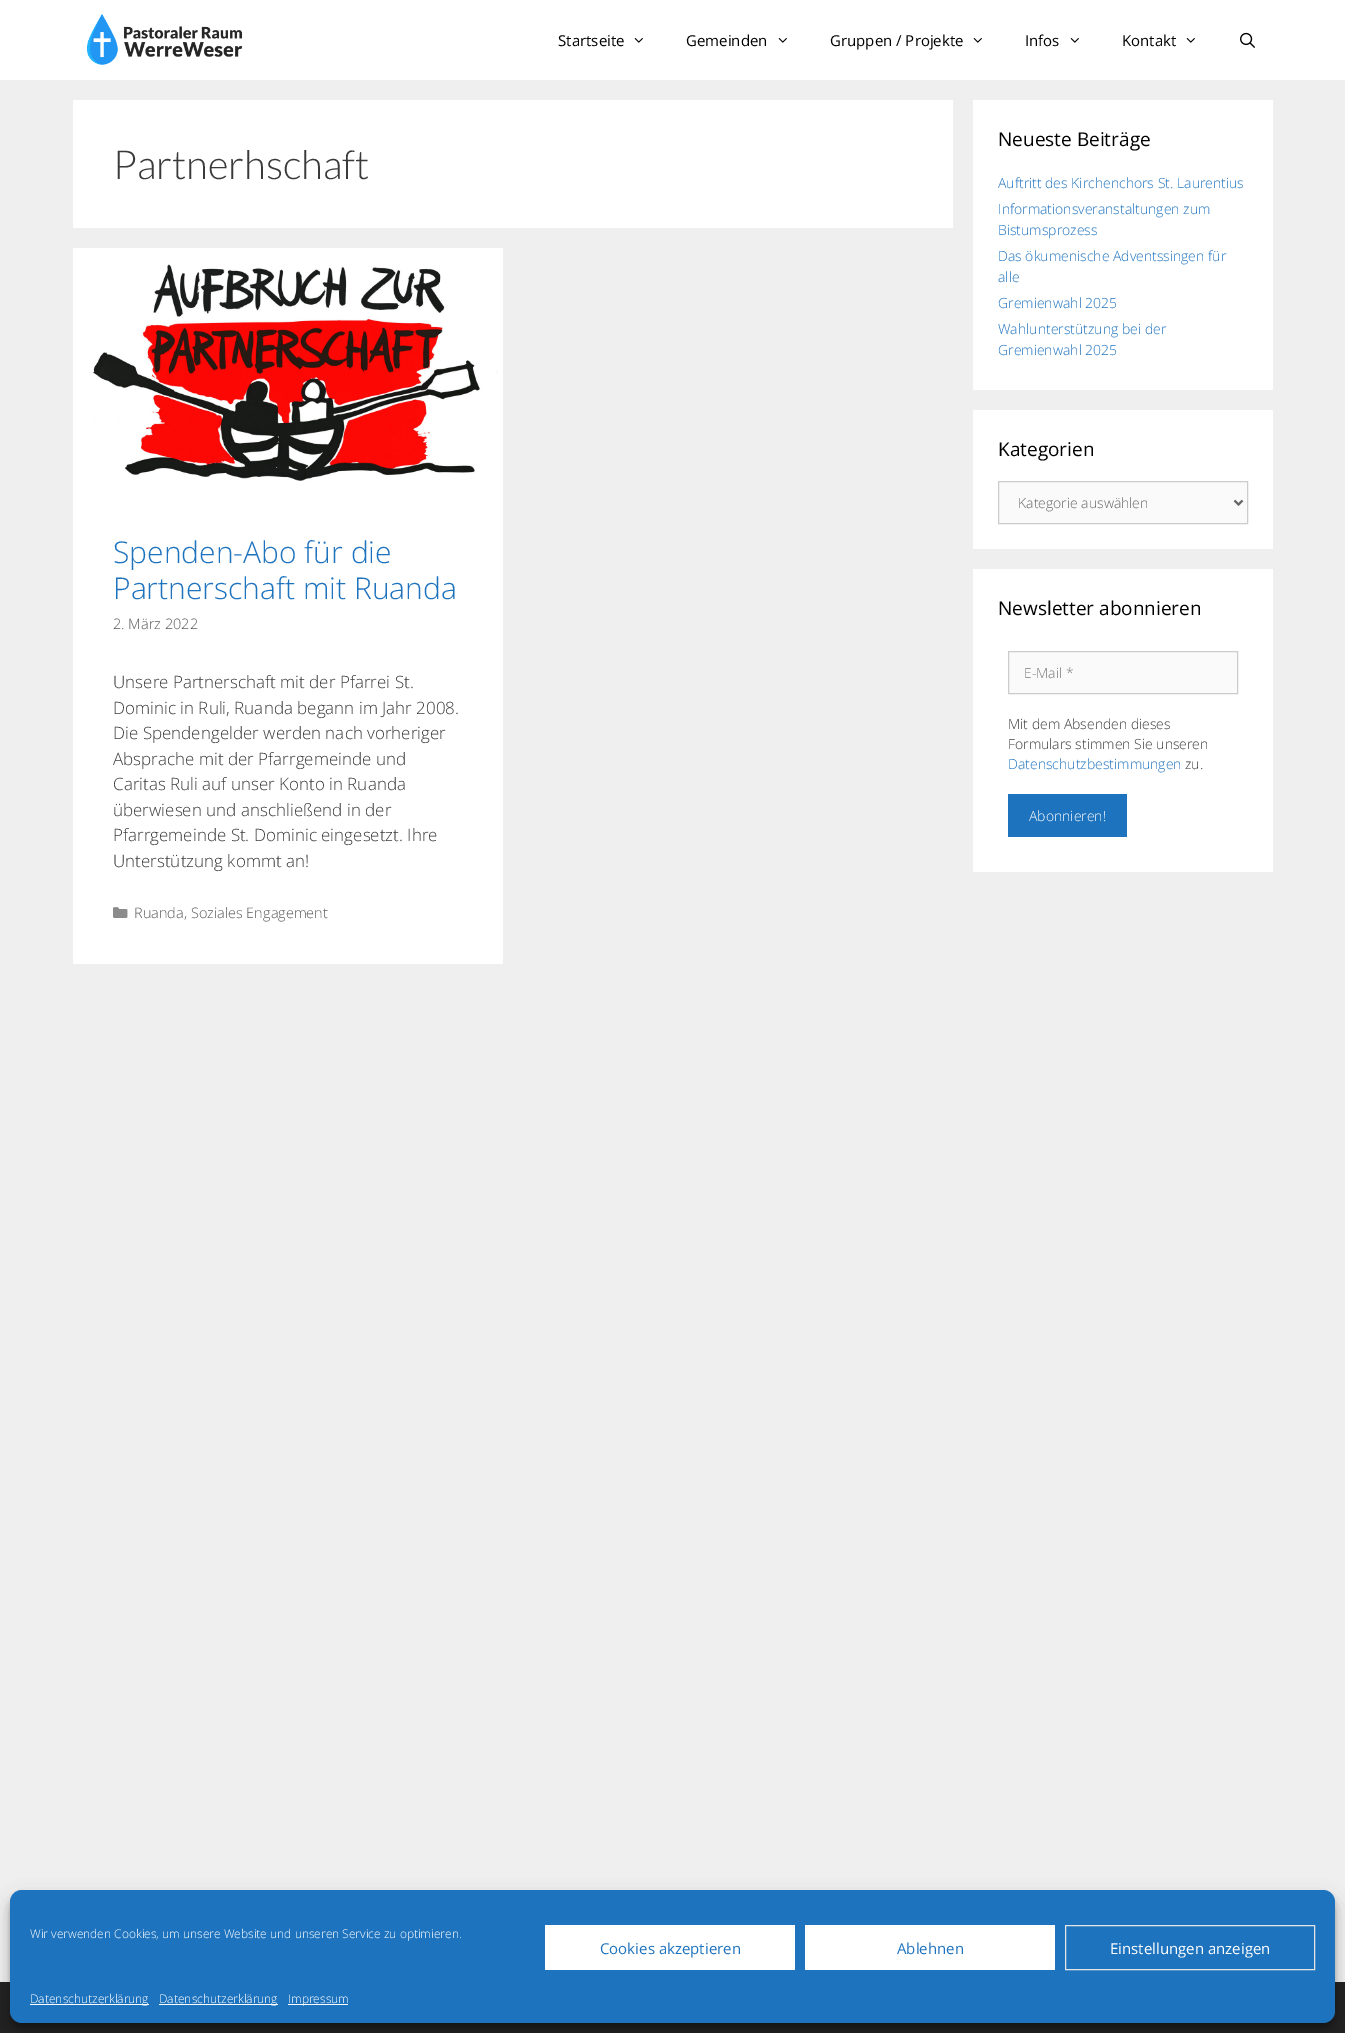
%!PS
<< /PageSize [1345 2033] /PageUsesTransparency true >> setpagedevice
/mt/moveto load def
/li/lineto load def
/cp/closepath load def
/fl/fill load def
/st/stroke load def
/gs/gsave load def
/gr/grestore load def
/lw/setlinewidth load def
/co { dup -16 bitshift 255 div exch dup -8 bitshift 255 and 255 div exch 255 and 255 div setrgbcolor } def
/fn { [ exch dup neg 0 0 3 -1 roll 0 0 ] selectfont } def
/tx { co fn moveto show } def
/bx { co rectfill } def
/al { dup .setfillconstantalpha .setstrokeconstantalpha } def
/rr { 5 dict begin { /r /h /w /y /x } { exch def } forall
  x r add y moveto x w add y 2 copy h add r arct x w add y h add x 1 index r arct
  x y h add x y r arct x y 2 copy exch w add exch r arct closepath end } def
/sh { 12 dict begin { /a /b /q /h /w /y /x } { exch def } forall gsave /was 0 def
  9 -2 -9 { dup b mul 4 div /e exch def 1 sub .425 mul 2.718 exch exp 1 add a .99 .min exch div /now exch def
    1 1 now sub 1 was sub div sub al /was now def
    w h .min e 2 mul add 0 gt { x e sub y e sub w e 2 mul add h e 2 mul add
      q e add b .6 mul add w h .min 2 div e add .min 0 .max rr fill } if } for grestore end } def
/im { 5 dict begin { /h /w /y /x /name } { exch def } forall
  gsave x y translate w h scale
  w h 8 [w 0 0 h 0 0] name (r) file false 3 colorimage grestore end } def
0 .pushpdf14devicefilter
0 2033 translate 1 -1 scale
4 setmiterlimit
0 0 1345 2033 16#EFEFEF bx
0 0 1345 80 16#FFFFFF bx
(media/1.raw) 86 14 157 51 im
(media/2.raw) 634 38 9 5 im
(media/2.raw) 778 38 9 5 im
(media/2.raw) 973 38 9 5 im
(media/2.raw) 1070 38 9 5 im
(media/2.raw) 1186 38 9 5 im
(media/3.raw) 1240 32 15 16 im
73 100 880 128 16#FFFFFF bx
73 248 430 716 16#FFFFFF bx
(media/4.raw) 93 264 405 217 im
(media/5.raw) 113 907 15 11 im
973 100 300 290 16#FFFFFF bx
973 410 300 139 16#FFFFFF bx
16#FAFAFA co
998.5 481.5 mt 1247.5 481.5 li 1247.5 523.5 li 998.5 523.5 li cp gs fl gr
16#CCCCCC co
st
16#666666 co
2 lw
1234.5 500.5 mt 1238.5 504.5 li 1242.5 500.5 li st
973 569 300 303 16#FFFFFF bx
16#FAFAFA co
1008.5 651.5 mt 1237.5 651.5 li 1237.5 693.5 li 1008.5 693.5 li cp gs fl gr
16#CCCCCC co
1 lw
st
1008 794 119 43 16#1E73BE bx
0 1982 1345 51 16#222222 bx
16#000000 co
10 1896 1325 133 12 3 .23 sh
10 1900 1325 133 12 10 .19 sh
16#1E73BE co
10 1890 1325 133 12 rr fl
545 1925 250 45 16#FFFFFF bx
805 1925 250 45 16#FFFFFF bx
16#E5E5E5 co
1065.5 1925.5 249 44 rectstroke
30 2004 119 1 16#FFFFFF bx
159 2004 119 1 16#FFFFFF bx
288 2004 60 1 16#FFFFFF bx
(Startseite) 558 46 /OpenSans-Regular 15 16#000000 tx
(Gemeinden) 686 46 /OpenSans-Regular 15 16#000000 tx
(Gruppen / Projekte) 830 46 /OpenSans-Regular 15 16#000000 tx
(Infos) 1025 46 /OpenSans-Regular 15 16#000000 tx
(Kontakt) 1122 46 /OpenSans-Regular 15 16#000000 tx
(Partnerhschaft) 113 179 /Lato-Light 40 16#3A3A3A tx
(Spenden-Abo für die) 113 563 /OpenSans-Light 30 16#1E73BE tx
(Partnerschaft mit Ruanda) 113 599 /OpenSans-Light 30 16#1E73BE tx
(2. März 2022) 113 629 /OpenSans-Light 14.5 16#595959 tx
(Unsere Partnerschaft mit der Pfarrei St.) 113 688 /OpenSans-Light 17 16#3A3A3A tx
(Dominic in Ruli, Ruanda begann im Jahr 2008.) 113 714 /OpenSans-Light 17 16#3A3A3A tx
(Die Spendengelder werden nach vorheriger) 113 739 /OpenSans-Light 17 16#3A3A3A tx
(Absprache mit der Pfarrgemeinde und) 113 765 /OpenSans-Light 17 16#3A3A3A tx
(Caritas Ruli auf unser Konto in Ruanda) 113 790 /OpenSans-Light 17 16#3A3A3A tx
(überwiesen und anschließend in der) 113 816 /OpenSans-Light 17 16#3A3A3A tx
(Pfarrgemeinde St. Dominic eingesetzt. Ihre) 113 841 /OpenSans-Light 17 16#3A3A3A tx
(Unterstützung kommt an!) 113 867 /OpenSans-Light 17 16#3A3A3A tx
(Ruanda, Soziales Engagement) 134 918 /OpenSans-Light 14.5 16#595959 tx
(Neueste Beiträge) 998 146 /OpenSans-Regular 19 16#000000 tx
(Auftritt des Kirchenchors St. Laurentius) 998 188 /OpenSans-Light 14 16#1E73BE tx
(Informationsveranstaltungen zum) 998 214 /OpenSans-Light 14 16#1E73BE tx
(Bistumsprozess) 998 235 /OpenSans-Light 14 16#1E73BE tx
(Das ökumenische Adventssingen für) 998 261 /OpenSans-Light 14 16#1E73BE tx
(alle) 998 282 /OpenSans-Light 14 16#1E73BE tx
(Gremienwahl 2025) 998 308 /OpenSans-Light 14 16#1E73BE tx
(Wahlunterstützung bei der) 998 334 /OpenSans-Light 14 16#1E73BE tx
(Gremienwahl 2025) 998 355 /OpenSans-Light 14 16#1E73BE tx
(Kategorien) 998 456 /OpenSans-Regular 19 16#000000 tx
(Kategorie auswählen) 1018 508 /OpenSans-Light 14 16#666666 tx
(Newsletter abonnieren) 998 615 /OpenSans-Regular 19 16#000000 tx
(E-Mail *) 1024 678 /OpenSans-Light 14 16#757575 tx
(Mit dem Absenden dieses) 1008 729 /OpenSans-Light 14 16#3A3A3A tx
(Formulars stimmen Sie unseren) 1008 749 /OpenSans-Light 14 16#3A3A3A tx
(Datenschutzbestimmungen) 1008 769 /OpenSans-Light 14 16#1E73BE tx
(zu.) 1185 769 /OpenSans-Light 14 16#3A3A3A tx
(Abonnieren!) 1029 821 /OpenSans-Light 14 16#FFFFFF tx
(Wir verwenden Cookies, um unsere Website und unseren Service zu optimieren.) 30 1938 /OpenSans-Light 12 16#FFFFFF tx
(Cookies akzeptieren) 600 1954 /OpenSans-Regular 15 16#1E73BE tx
(Ablehnen) 897 1954 /OpenSans-Regular 15 16#1E73BE tx
(Einstellungen anzeigen) 1110 1954 /OpenSans-Regular 15 16#FFFFFF tx
(Datenschutzerklärung) 30 2003 /OpenSans-Light 12 16#FFFFFF tx
(Datenschutzerklärung) 159 2003 /OpenSans-Light 12 16#FFFFFF tx
(Impressum) 288 2003 /OpenSans-Light 12 16#FFFFFF tx
.poppdf14devicefilter showpage
